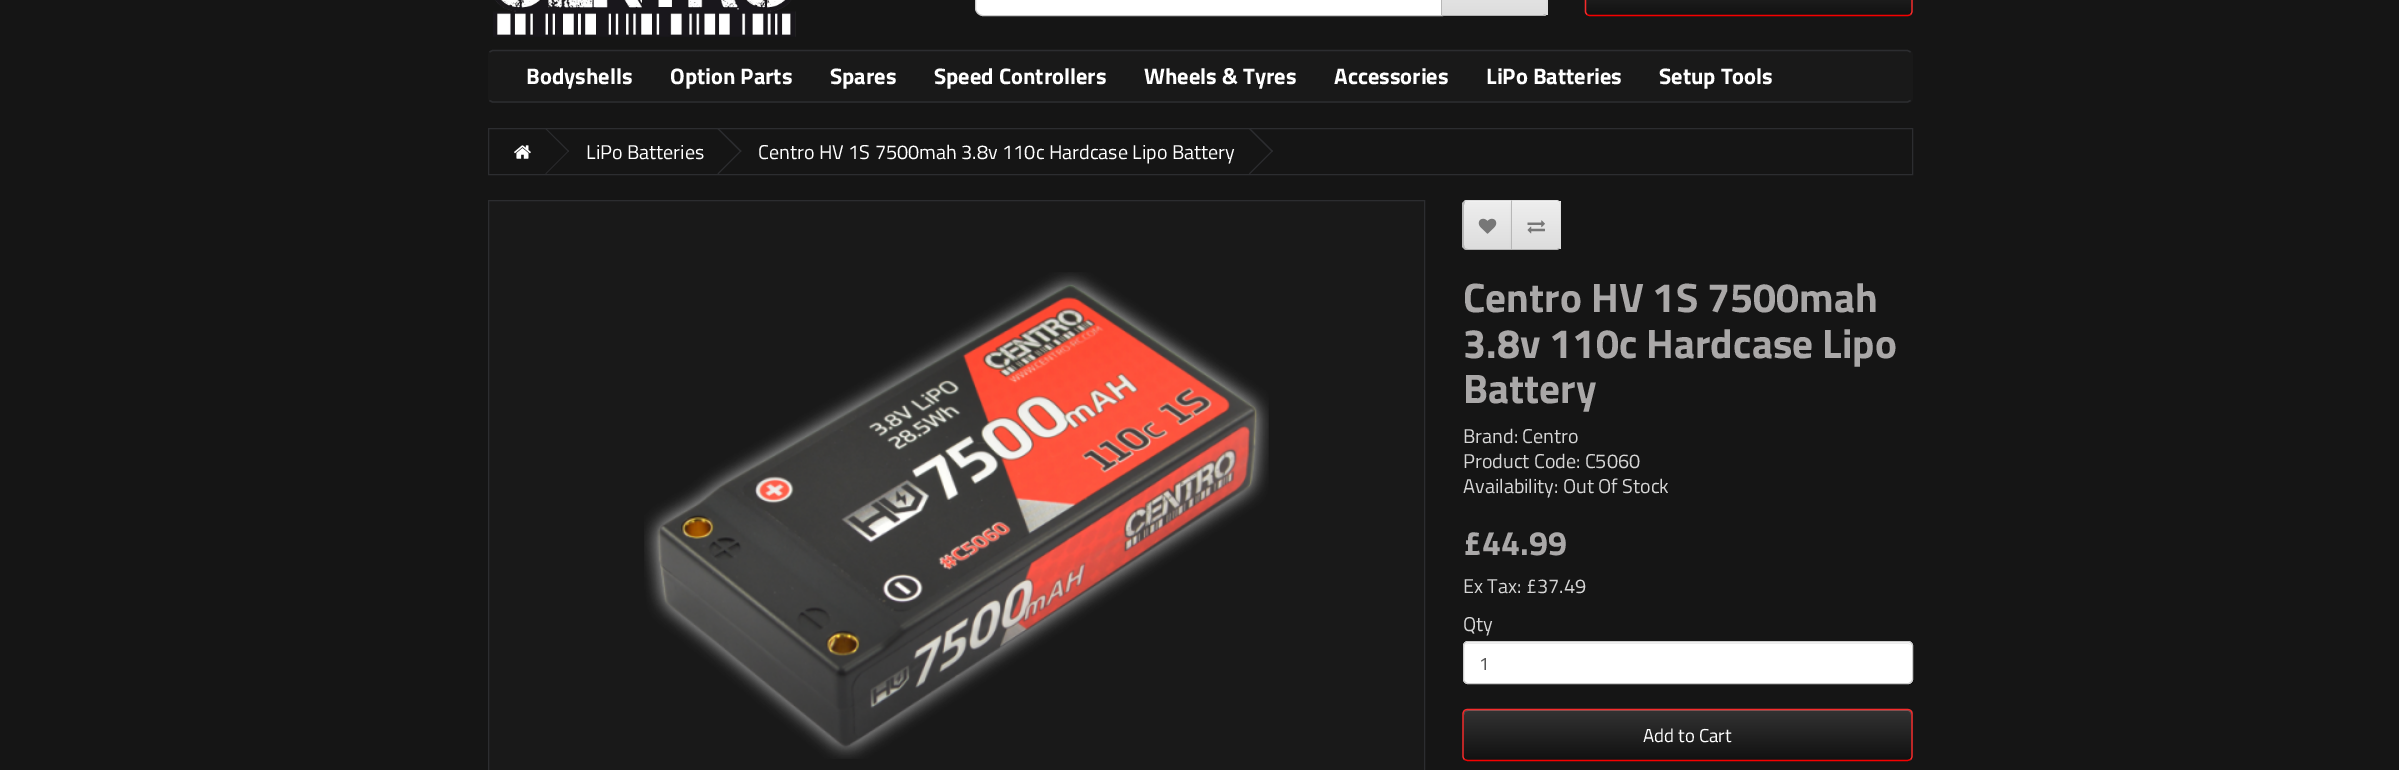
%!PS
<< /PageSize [2399 770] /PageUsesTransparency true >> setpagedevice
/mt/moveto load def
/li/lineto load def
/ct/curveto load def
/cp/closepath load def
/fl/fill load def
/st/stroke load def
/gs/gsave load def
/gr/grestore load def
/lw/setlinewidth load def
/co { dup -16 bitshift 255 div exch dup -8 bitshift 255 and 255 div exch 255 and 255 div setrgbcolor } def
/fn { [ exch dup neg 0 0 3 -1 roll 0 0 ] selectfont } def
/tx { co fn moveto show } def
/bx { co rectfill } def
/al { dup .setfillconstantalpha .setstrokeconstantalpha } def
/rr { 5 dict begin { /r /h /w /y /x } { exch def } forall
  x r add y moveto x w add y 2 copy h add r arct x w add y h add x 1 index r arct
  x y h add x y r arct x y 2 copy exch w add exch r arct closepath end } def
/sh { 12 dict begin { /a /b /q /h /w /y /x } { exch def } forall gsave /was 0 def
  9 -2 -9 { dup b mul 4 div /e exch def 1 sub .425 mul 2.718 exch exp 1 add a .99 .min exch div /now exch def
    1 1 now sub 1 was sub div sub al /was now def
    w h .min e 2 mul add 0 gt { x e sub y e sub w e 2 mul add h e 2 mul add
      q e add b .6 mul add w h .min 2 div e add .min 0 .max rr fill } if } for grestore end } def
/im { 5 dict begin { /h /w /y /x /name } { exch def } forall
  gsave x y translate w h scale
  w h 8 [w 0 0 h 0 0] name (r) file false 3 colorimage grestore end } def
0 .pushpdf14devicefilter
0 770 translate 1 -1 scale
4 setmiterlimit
0 0 2399 770 16#151515 bx
(media/1.raw) 493 0 303 37 im
16#FFFFFF co
983 -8.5 mt 1442.5 -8.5 li 1442.5 15.5 li 983 15.5 li 979 15.5 975.5 12 975.5 8 ct 975.5 -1 li 975.5 -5 979 -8.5 983 -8.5 ct cp gs fl gr
16#CCCCCC co
st
16#E7E7E7 co
1441 -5 mt 1543 -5 li 1546 -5 1548 -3 1548 0 ct 1548 11 li 1548 14 1546 16 1543 16 ct 1441 16 li cp fl
gs
1441 -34 mt 1543 -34 li 1546 -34 1548 -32 1548 -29 ct 1548 11 li 1548 14 1546 16 1543 16 ct 1441 16 li cp clip newpath
gs 1442 0 mt 1548 0 li 1548 15 li 1442 15 li cp clip newpath
<< /ShadingType 2 /ColorSpace /DeviceRGB /Coords [1494 -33 1494 15] /Extend [true true] /Function << /FunctionType 2 /Domain [0 1] /C0 [.933 .933 .933] /C1 [.867 .867 .867] /N 1 >> >> shfill gr
gr
16#DDDDDD co
1548 13 mt 1546 15 li 1545 14 li 1547 12 1546 6 1546 4 ct 1546 -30 li 1545 -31 li 1546 -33 li 1548 -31 li cp fl
16#B3B3B3 co
1546 15 mt 1545 16 1543 16 1542 16 ct 1442 16 li 1442 15 li 1543 15 li 1545 14 li cp fl
16#B7B7B7 co
1442 -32 mt 1442 15 li 1441 16 li 1441 -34 li 1443 -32 li cp fl
gs
1585 -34 328 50 5 rr clip newpath
gs 1585 0 mt 1913 0 li 1913 15 li 1585 15 li cp clip newpath
<< /ShadingType 2 /ColorSpace /DeviceRGB /Coords [1749 -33 1749 15] /Extend [true true] /Function << /FunctionType 2 /Domain [0 1] /C0 [.2 .2 .2] /C1 [.067 .067 .067] /N 1 >> >> shfill gr
gr
16#F50000 co
1.2 lw
1910.5 14.5 mt 1910 15 1908.5 15.5 1907.5 15.5 ct 1590 15.5 li 1589 15.5 1587.5 15 1587 14.5 ct st
16#F62B2B co
1587 14.5 mt 1586 13.5 1585.5 12.5 1585.5 11.5 ct 1585.5 -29 li 1585.5 -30 1586 -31 1587 -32 ct 1587.5 -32.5 1589 -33 1590 -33 ct 1907.5 -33 li 1908.5 -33 1910 -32.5 1910.5 -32 ct 1911.5 -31 1912 -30 1912 -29 ct 1912 11 li 1912 12.5 1911.5 13.5 1910.5 14.5 ct st
16#191919 co
488 50 1425 53 5 rr fl
16#2C2D30 co
489.5 52 mt 492.5 50.5 li 1907.5 50.5 li 1910.5 52 li st
1910.5 100.5 mt 1907.5 102 li 492.5 102 li 489.5 100.5 li st
1 lw
488.5 128.5 1424 46 rectstroke
(media/2.raw) 514 145 17 14 im
545.5 129 mt 546 128.5 li 569 151 li 568.5 152 li cp fl
545.5 173.5 mt 568.5 150.5 li 569 151 li 546 174 li cp fl
717.5 129 mt 718.5 128.5 li 741.5 151 li 740.5 152 li cp fl
717.5 173.5 mt 740.5 150.5 li 741.5 151 li 718.5 174 li cp fl
1249 129 mt 1250 128.5 li 1273 151 li 1272 152 li cp fl
1249 173.5 mt 1272 150.5 li 1273 151 li 1250 174 li cp fl
16#191919 co
488.5 200.5 mt 1424.5 200.5 li 1424.5 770.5 li 488.5 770.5 li cp gs fl gr
16#2C2D30 co
st
(media/3.raw) 644 272 625 487 im
gs
1468 200 mt 1513 200 li 1513 250 li 1468 250 li 1465 250 1463 248 1463 245 ct 1463 205 li 1463 202 1465 200 1468 200 ct cp clip newpath
gs 1464 201 mt 1511 201 li 1511 249 li 1464 249 li cp clip newpath
<< /ShadingType 2 /ColorSpace /DeviceRGB /Coords [1488 201 1488 249] /Extend [true true] /Function << /FunctionType 2 /Domain [0 1] /C0 [.933 .933 .933] /C1 [.867 .867 .867] /N 1 >> >> shfill gr
gr
16#F1F1F1 co
1468 202 mt 1511 202 li 1511 201 li 1468 201 li 1466 201 1464 203 1464 205 ct 1464 206 li 1464 204 1465 202 1468 202 ct cp fl
16#DDDDDD co
1468 200 mt 1466 200 1465 200 1464 201 ct 1465 202 li 1465 202 1466 201 1468 201 ct 1511 201 li 1511 202 li 1512 200 li cp fl
16#B3B3B3 co
1468 250 mt 1512 250 li 1511 248 li 1511 249 li 1468 249 li 1466 249 1465 248 1465 248 ct 1464 249 li 1465 250 1466 250 1468 250 ct cp fl
16#B7B7B7 co
1462 203 mt 1464 201 li 1465 202 li 1464 205 li 1464 245 li 1465 248 li 1464 249 li 1462 247 li cp fl
(media/4.raw) 1478 218 19 16 im
16#000000 co
1511 201 50 50 5 1 .05 sh
gs
1511 200 mt 1556 200 li 1559 200 1561 202 1561 205 ct 1561 245 li 1561 248 1559 250 1556 250 ct 1511 250 li cp clip newpath
gs 1512 201 mt 1561 201 li 1561 249 li 1512 249 li cp clip newpath
<< /ShadingType 2 /ColorSpace /DeviceRGB /Coords [1536 201 1536 249] /Extend [true true] /Function << /FunctionType 2 /Domain [0 1] /C0 [.933 .933 .933] /C1 [.867 .867 .867] /N 1 >> >> shfill gr
gr
16#F1F1F1 co
1513 201 mt 1513 202 li 1556 202 li 1558 202 1560 204 1560 206 ct 1560 203 1559 201 1556 201 ct cp fl
16#DDDDDD co
1511 200 mt 1512 201 li 1557 201 li 1559 202 li 1560 202 li 1559 201 1558 200 1556 200 ct cp 1560 202 mt 1561 202 1561 204 1561 205 ct 1561 245 li 1561 246 1561 248 1560 248 ct 1559 248 li 1560 247 1560 246 1560 245 ct 1560 205 li 1560 204 1560 203 1559 202 ct cp fl
16#B3B3B3 co
1511 250 mt 1556 250 li 1558 250 1559 249 1560 248 ct 1559 248 li 1557 249 li 1512 249 li cp fl
16#B7B7B7 co
1512 201 mt 1511 200 li 1511 250 li 1512 249 li cp fl
(media/5.raw) 1527 220 18 14 im
16#FFFFFF co
1463 641 450 43 5 rr fl
16#ECECEC co
1468 644 mt 1908 644 li 1910 644 1911 645 1911 648 ct 1911 645 1910 643 1907 643 ct 1468 643 li 1466 644 li 1465 645 li 1464 648 li 1464 645 1465 644 1468 644 ct cp fl
16#CCCCCC co
1463.5 641.5 449 42 4.5 rr st
16#222222 co
1463 709 450 52 5 rr fl
gs
1463 709 450 52 5 rr clip newpath
gs 1463 710 mt 1913 710 li 1913 760 li 1463 760 li cp clip newpath
<< /ShadingType 2 /ColorSpace /DeviceRGB /Coords [1688 710 1688 760] /Extend [true true] /Function << /FunctionType 2 /Domain [0 1] /C0 [.2 .2 .2] /C1 [.067 .067 .067] /N 1 >> >> shfill gr
gr
16#5C5C5C co
1468 711 mt 1908 711 li 1910 711 1911 713 1911 715 ct 1911 712 1910 710 1907 710 ct 1468 710 li 1466 711 li 1465 712 li 1464 715 li 1464 713 1465 711 1468 711 ct cp fl
16#F50000 co
1.2 lw
1910.5 759.5 mt 1907.5 760.5 li 1467.5 760.5 li 1464.5 759.5 li st
16#F62B2B co
1464.5 759.5 mt 1463.5 758.5 1463 757.5 1463 756 ct 1463 714 li 1463 712.5 1463.5 711.5 1464.5 710.5 ct 1465 710 1466.5 709.5 1467.5 709.5 ct 1907.5 709.5 li 1908.5 709.5 1910 710 1910.5 710.5 ct 1911.5 711.5 1912 712.5 1912 714 ct 1912 756 li 1912 757.5 1911.5 758.5 1910.5 759.5 ct st
(Bodyshells) 526 84 /TitilliumWeb-Bold 22.5 16#FFFFFF tx
(Option Parts) 670 84 /TitilliumWeb-Bold 22.5 16#FFFFFF tx
(Spares) 830 84 /TitilliumWeb-Bold 22.5 16#FFFFFF tx
(Speed Controllers) 934 84 /TitilliumWeb-Bold 22.5 16#FFFFFF tx
(Wheels & Tyres) 1144 84 /TitilliumWeb-Bold 22.5 16#FFFFFF tx
(Accessories) 1334 84 /TitilliumWeb-Bold 22.5 16#FFFFFF tx
(LiPo Batteries) 1486 84 /TitilliumWeb-Bold 22.5 16#FFFFFF tx
(Setup Tools) 1659 84 /TitilliumWeb-Bold 22.5 16#FFFFFF tx
(LiPo Batteries) 586 159 /TitilliumWeb-Regular 20 16#FFFFFF tx
(Centro HV 1S 7500mah 3.8v 110c Hardcase Lipo Battery) 758 159 /TitilliumWeb-Regular 20 16#FFFFFF tx
(Centro HV 1S 7500mah) 1463 312 /TitilliumWeb-Bold 41.25 16#AAA8A8 tx
(3.8v 110c Hardcase Lipo) 1463 358 /TitilliumWeb-Bold 41.25 16#AAA8A8 tx
(Battery) 1463 403 /TitilliumWeb-Bold 41.25 16#AAA8A8 tx
(Brand: Centro) 1463 443 /TitilliumWeb-Regular 20 16#D6D6D6 tx
(Product Code: C5060) 1463 468 /TitilliumWeb-Regular 20 16#D6D6D6 tx
(Availability: Out Of Stock) 1463 493 /TitilliumWeb-Regular 20 16#D6D6D6 tx
(£44.99) 1463 555 /TitilliumWeb-Bold 34 16#AAA8A8 tx
(Ex Tax: £37.49) 1463 593 /TitilliumWeb-Regular 20 16#D6D6D6 tx
(Qty) 1463 631 /TitilliumWeb-Regular 20 16#D6D6D6 tx
(1) 1479 670 /TitilliumWeb-Regular 18 16#555555 tx
(Add to Cart) 1643 742 /TitilliumWeb-Regular 18.75 16#FFFFFF tx
.poppdf14devicefilter showpage
